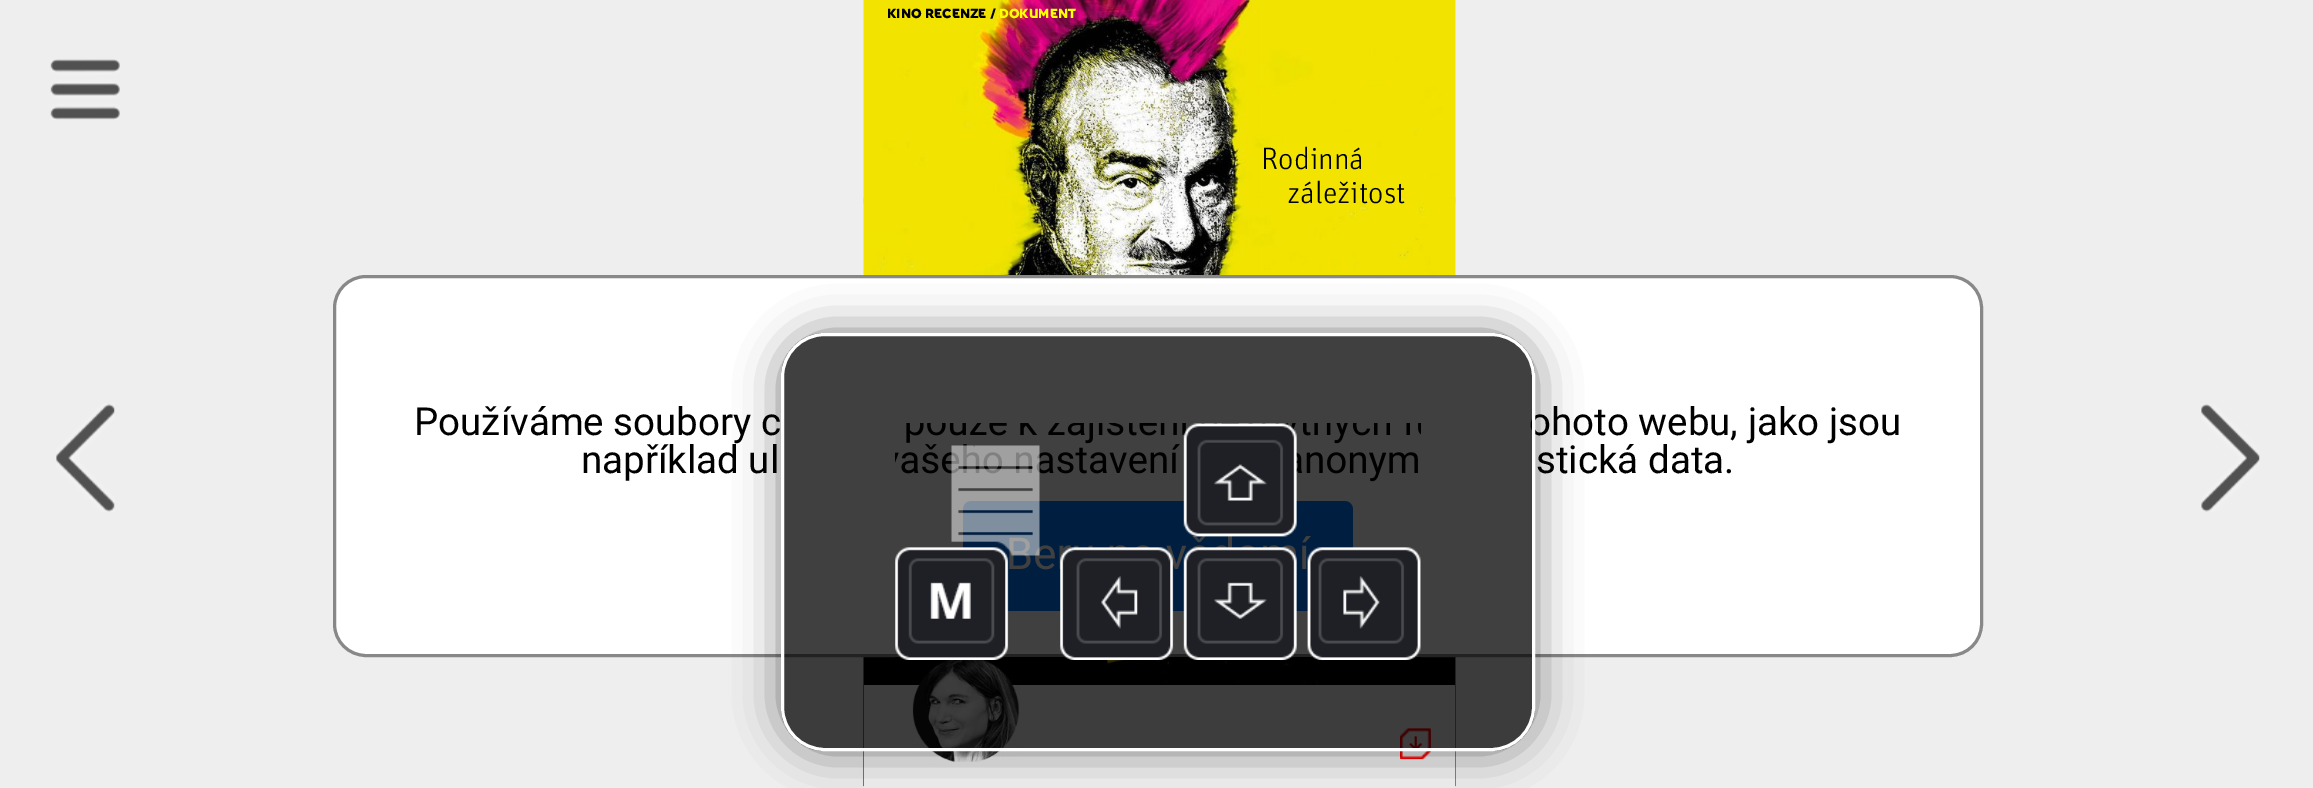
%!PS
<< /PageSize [2313 788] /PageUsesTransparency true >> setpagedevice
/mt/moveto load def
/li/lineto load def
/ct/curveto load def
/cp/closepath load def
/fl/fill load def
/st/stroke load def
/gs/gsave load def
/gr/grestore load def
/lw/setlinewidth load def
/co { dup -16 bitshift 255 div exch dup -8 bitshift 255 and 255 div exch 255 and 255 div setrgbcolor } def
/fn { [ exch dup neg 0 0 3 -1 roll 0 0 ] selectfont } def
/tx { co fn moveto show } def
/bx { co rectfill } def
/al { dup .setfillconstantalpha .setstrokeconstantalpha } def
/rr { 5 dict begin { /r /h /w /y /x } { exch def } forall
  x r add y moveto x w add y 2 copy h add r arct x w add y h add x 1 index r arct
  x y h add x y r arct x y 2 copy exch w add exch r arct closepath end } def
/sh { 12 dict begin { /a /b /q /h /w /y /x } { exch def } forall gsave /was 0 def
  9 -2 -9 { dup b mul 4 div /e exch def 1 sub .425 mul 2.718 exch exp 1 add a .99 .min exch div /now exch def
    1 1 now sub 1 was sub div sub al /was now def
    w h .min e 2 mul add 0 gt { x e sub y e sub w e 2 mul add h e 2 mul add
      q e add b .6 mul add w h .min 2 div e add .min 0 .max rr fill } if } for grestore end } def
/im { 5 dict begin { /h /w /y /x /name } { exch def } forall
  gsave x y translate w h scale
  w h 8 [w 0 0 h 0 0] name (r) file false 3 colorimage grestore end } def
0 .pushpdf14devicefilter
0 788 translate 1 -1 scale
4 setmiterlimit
0 0 2313 788 16#EEEEEE bx
(media/1.raw) 50 59 70 61 im
(media/2.raw) 863 0 198 204 im
(media/3.raw) 1060 0 199 198 im
(media/4.raw) 1258 0 198 204 im
(media/5.raw) 863 197 204 78 im
(media/6.raw) 1060 197 205 78 im
(media/7.raw) 1258 197 198 78 im
(media/8.raw) 863 657 198 130 im
(media/9.raw) 1061 657 198 28 im
(media/10.raw) 1258 657 198 130 im
864 685 591 103 16#F2F2F2 bx
(media/11.raw) 912 660 108 102 im
(media/12.raw) 1400 728 31 32 im
(media/13.raw) 1409 736 14 12 im
(media/14.raw) 56 403 59 109 im
16#FFFFFF co
334.5 276.5 1647 379 31.5 rr gs fl gr
16#888888 co
3 lw
st
16#007AFF co
963 501 390 110 8 rr fl
gs
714 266 mt 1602 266 li 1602 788 li 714 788 li cp 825 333 mt 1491 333 li 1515.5 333 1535 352.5 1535 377 ct 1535 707 li 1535 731.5 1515.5 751 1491 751 ct 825 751 li 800.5 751 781 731.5 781 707 ct 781 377 li 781 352.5 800.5 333 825 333 ct cp eoclip newpath
16#000000 co
781 333 754 418 44 22 .5 sh
gr
(media/16.raw) 2201 404 59 108 im
(KINO RECENZE /) 887 18 /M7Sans-Regular 13 16#000000 tx
(DOKUMENT) 999 18 /M7Sans-Regular 13 16#FFFF00 tx
(Rodinná) 1261 169 /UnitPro-Light 31 16#000000 tx
(záležitost) 1287 203 /UnitPro-Light 31 16#000000 tx
(Používáme soubory c) 414 435 /Roboto-Regular 38.5 16#000000 tx
(ohoto webu, jako jsou) 1529 435 /Roboto-Regular 38.5 16#000000 tx
0.75 al
781 333 754 418 44 rr fl
1 al
(media/15.raw) 895 423 526 237 im
16#FFFFFF co
782.5 334.5 751 415 42.5 rr st
(například ul) 581 473 /Roboto-Regular 38.5 16#000000 tx
(stická data.) 1536 473 /Roboto-Regular 38.5 16#000000 tx
.poppdf14devicefilter showpage
